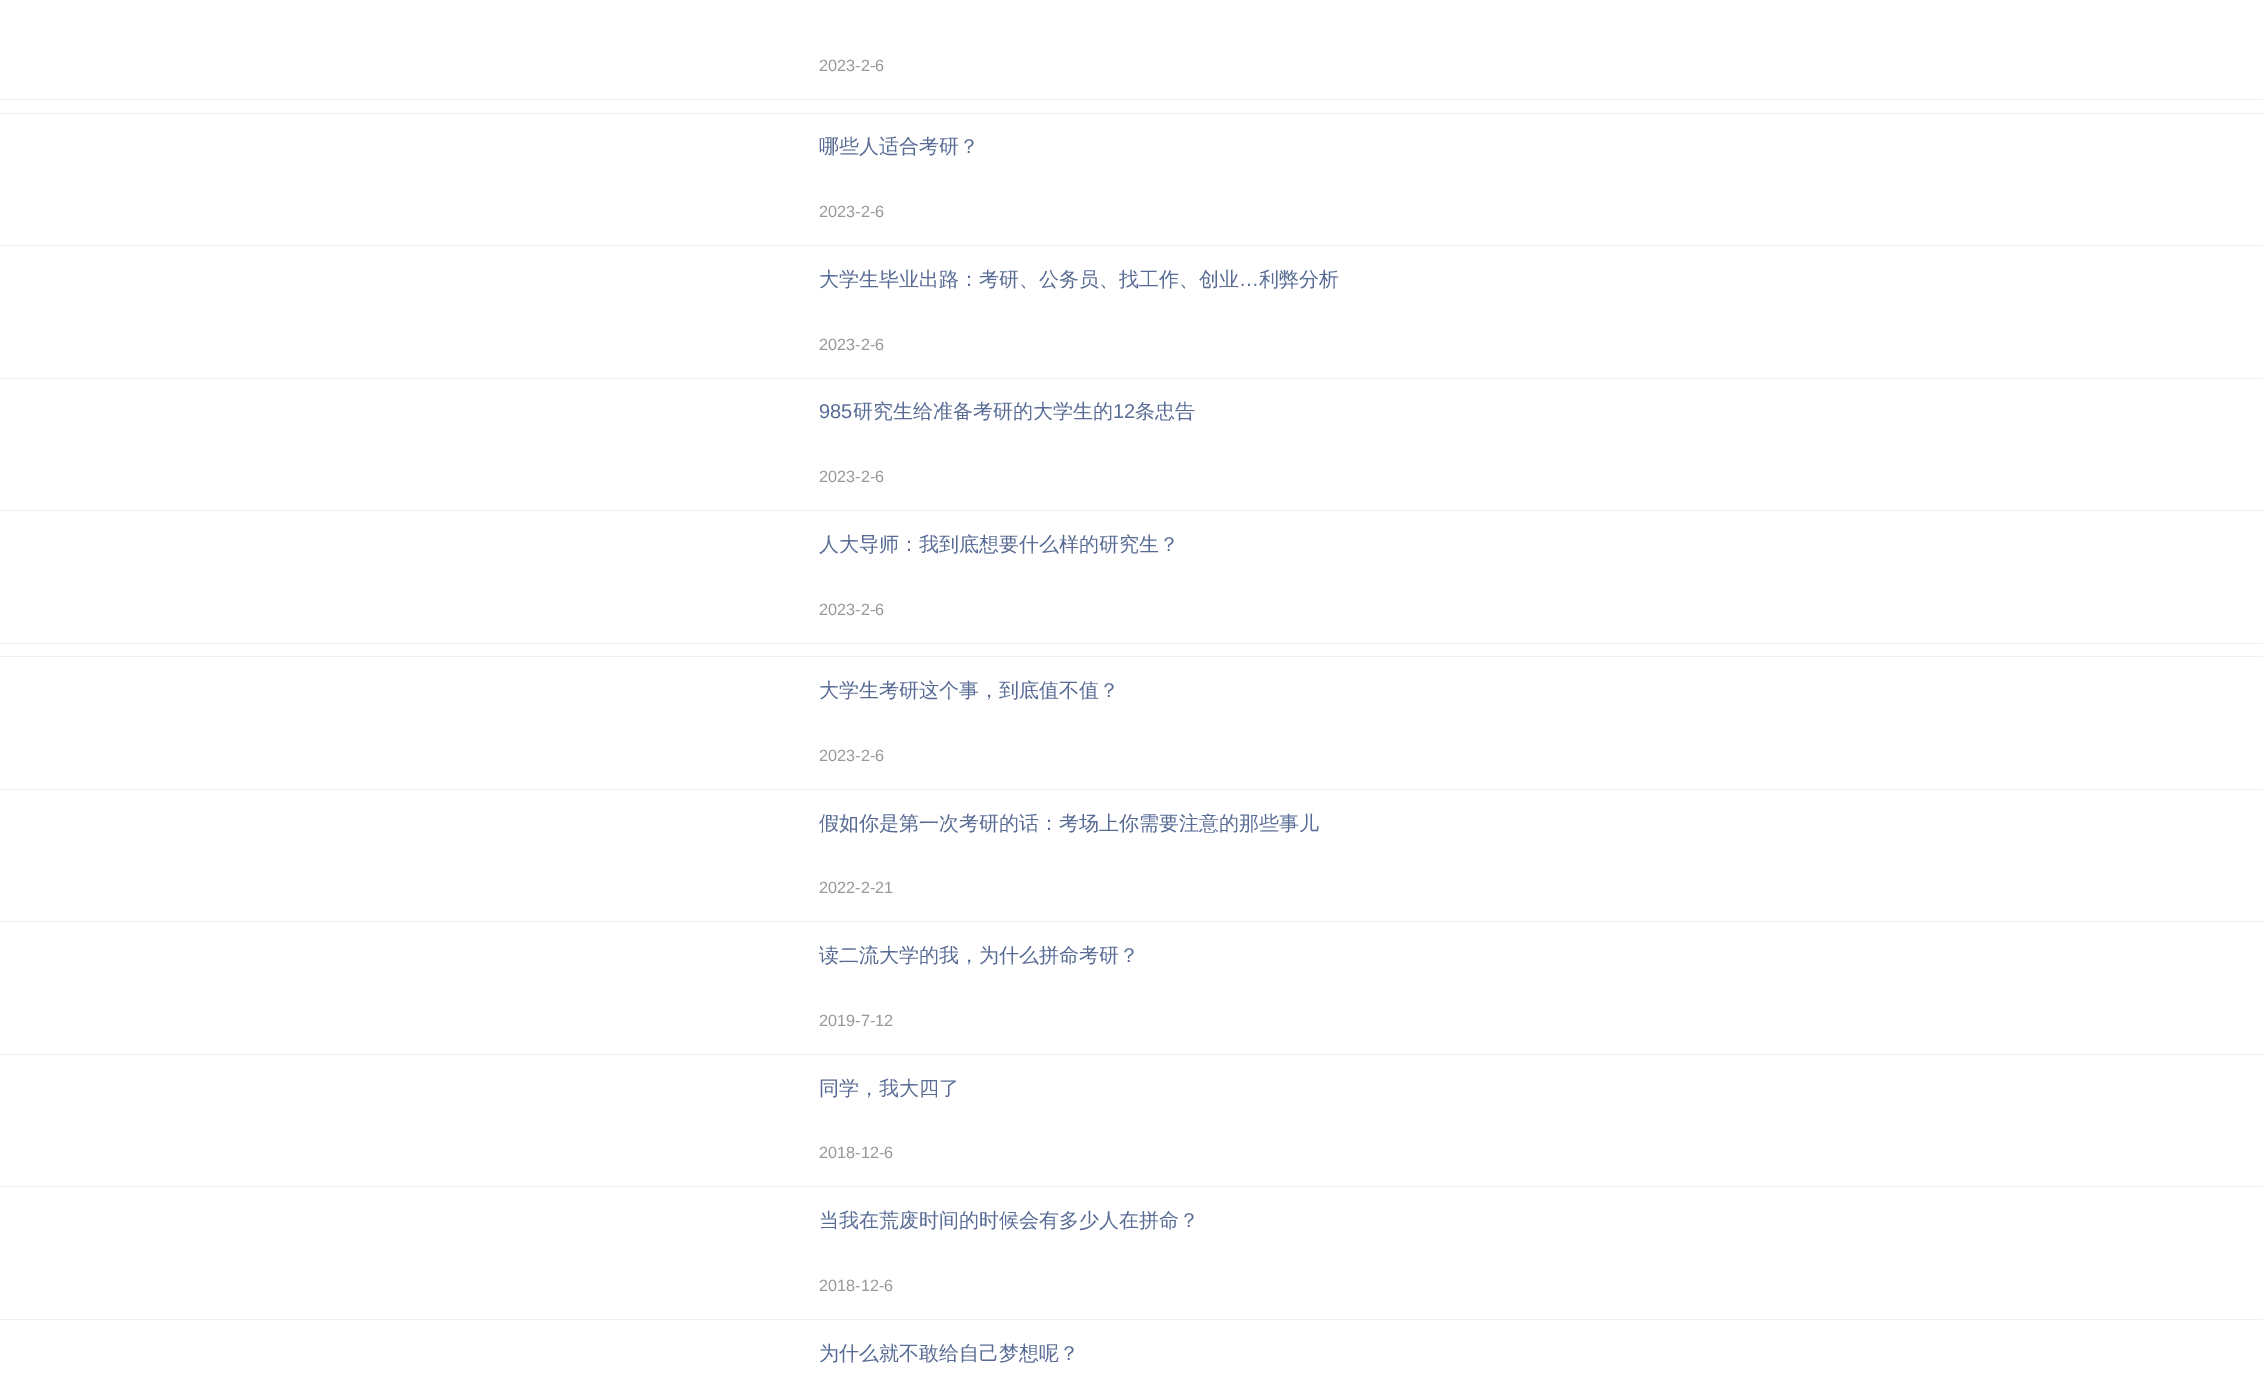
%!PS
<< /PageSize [2263 1394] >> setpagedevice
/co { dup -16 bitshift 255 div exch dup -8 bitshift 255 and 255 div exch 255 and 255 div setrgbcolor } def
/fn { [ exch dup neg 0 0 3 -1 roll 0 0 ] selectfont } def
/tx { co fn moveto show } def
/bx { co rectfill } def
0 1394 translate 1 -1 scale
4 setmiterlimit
0 0 2263 1394 16#FFFFFF bx
0 99 2263 1 16#EFEFEF bx
0 113 2263 1 16#EFEFEF bx
0 245 2263 1 16#EFEFEF bx
0 378 2263 1 16#EFEFEF bx
0 510 2263 1 16#EFEFEF bx
0 643 2263 1 16#EFEFEF bx
0 656 2263 1 16#EFEFEF bx
0 789 2263 1 16#EFEFEF bx
0 921 2263 1 16#EFEFEF bx
0 1054 2263 1 16#EFEFEF bx
0 1186 2263 1 16#EFEFEF bx
0 1319 2263 1 16#EFEFEF bx
(2023-2-6) 819 71 /LiberationSans-Regular 16.25 16#999999 tx
(哪些人适合考研？) 819 153 /WenQuanYiZenHei-Medium 20 16#576B95 tx
(2023-2-6) 819 217 /LiberationSans-Regular 16.25 16#999999 tx
(大学生毕业出路：考研、公务员、找工作、创业) 819 286 /WenQuanYiZenHei-Medium 20 16#576B95 tx
(…) 1239 286 /LiberationSans-Regular 20 16#576B95 tx
(利弊分析) 1259 286 /WenQuanYiZenHei-Medium 20 16#576B95 tx
(2023-2-6) 819 350 /LiberationSans-Regular 16.25 16#999999 tx
(985) 819 418 /LiberationSans-Regular 20 16#576B95 tx
(研究生给准备考研的大学生的) 853 418 /WenQuanYiZenHei-Medium 20 16#576B95 tx
(12) 1113 418 /LiberationSans-Regular 20 16#576B95 tx
(条忠告) 1135 418 /WenQuanYiZenHei-Medium 20 16#576B95 tx
(2023-2-6) 819 482 /LiberationSans-Regular 16.25 16#999999 tx
(人大导师：我到底想要什么样的研究生？) 819 551 /WenQuanYiZenHei-Medium 20 16#576B95 tx
(2023-2-6) 819 615 /LiberationSans-Regular 16.25 16#999999 tx
(大学生考研这个事，到底值不值？) 819 697 /WenQuanYiZenHei-Medium 20 16#576B95 tx
(2023-2-6) 819 761 /LiberationSans-Regular 16.25 16#999999 tx
(假如你是第一次考研的话：考场上你需要注意的那些事儿) 819 830 /WenQuanYiZenHei-Medium 20 16#576B95 tx
(2022-2-21) 819 893 /LiberationSans-Regular 16.25 16#999999 tx
(读二流大学的我，为什么拼命考研？) 819 962 /WenQuanYiZenHei-Medium 20 16#576B95 tx
(2019-7-12) 819 1026 /LiberationSans-Regular 16.25 16#999999 tx
(同学，我大四了) 819 1095 /WenQuanYiZenHei-Medium 20 16#576B95 tx
(2018-12-6) 819 1158 /LiberationSans-Regular 16.25 16#999999 tx
(当我在荒废时间的时候会有多少人在拼命？) 819 1227 /WenQuanYiZenHei-Medium 20 16#576B95 tx
(2018-12-6) 819 1291 /LiberationSans-Regular 16.25 16#999999 tx
(为什么就不敢给自己梦想呢？) 819 1360 /WenQuanYiZenHei-Medium 20 16#576B95 tx
showpage
